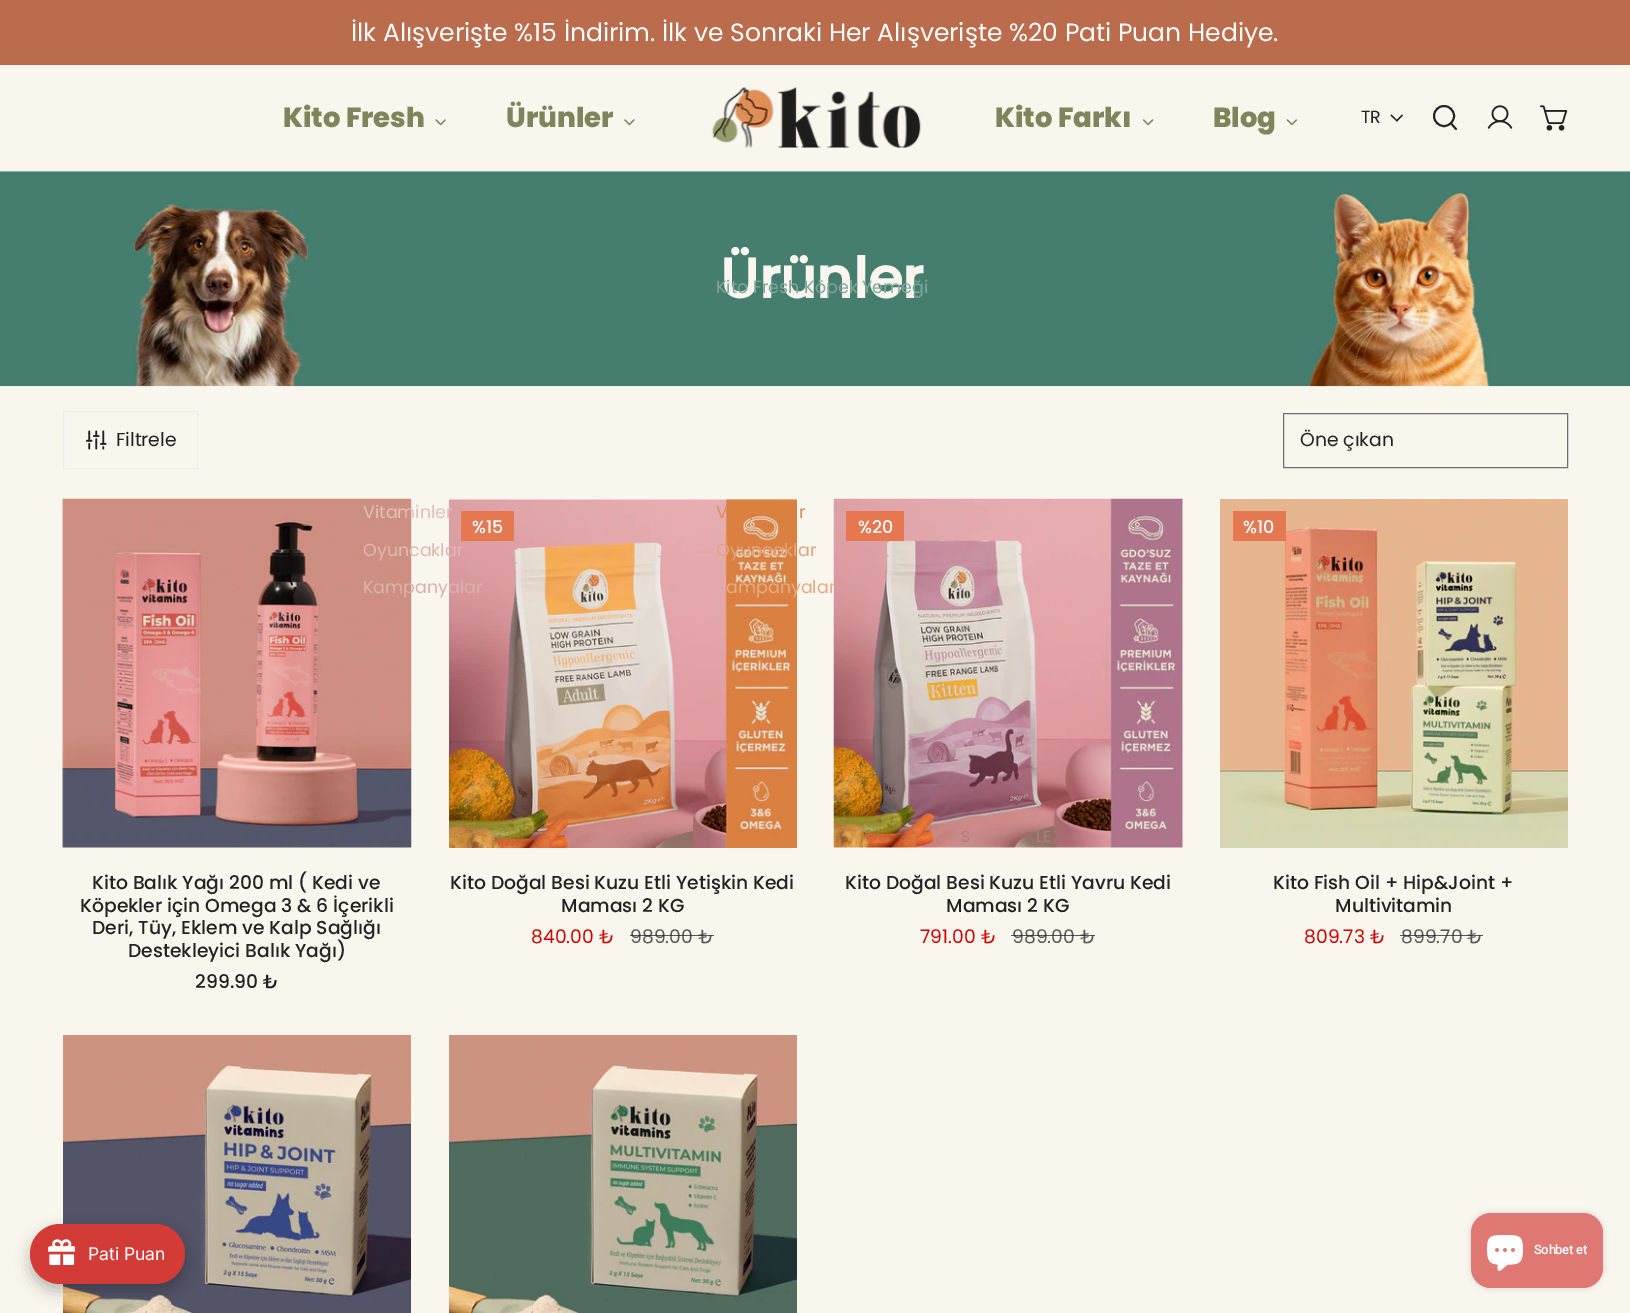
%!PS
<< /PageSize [1630 1313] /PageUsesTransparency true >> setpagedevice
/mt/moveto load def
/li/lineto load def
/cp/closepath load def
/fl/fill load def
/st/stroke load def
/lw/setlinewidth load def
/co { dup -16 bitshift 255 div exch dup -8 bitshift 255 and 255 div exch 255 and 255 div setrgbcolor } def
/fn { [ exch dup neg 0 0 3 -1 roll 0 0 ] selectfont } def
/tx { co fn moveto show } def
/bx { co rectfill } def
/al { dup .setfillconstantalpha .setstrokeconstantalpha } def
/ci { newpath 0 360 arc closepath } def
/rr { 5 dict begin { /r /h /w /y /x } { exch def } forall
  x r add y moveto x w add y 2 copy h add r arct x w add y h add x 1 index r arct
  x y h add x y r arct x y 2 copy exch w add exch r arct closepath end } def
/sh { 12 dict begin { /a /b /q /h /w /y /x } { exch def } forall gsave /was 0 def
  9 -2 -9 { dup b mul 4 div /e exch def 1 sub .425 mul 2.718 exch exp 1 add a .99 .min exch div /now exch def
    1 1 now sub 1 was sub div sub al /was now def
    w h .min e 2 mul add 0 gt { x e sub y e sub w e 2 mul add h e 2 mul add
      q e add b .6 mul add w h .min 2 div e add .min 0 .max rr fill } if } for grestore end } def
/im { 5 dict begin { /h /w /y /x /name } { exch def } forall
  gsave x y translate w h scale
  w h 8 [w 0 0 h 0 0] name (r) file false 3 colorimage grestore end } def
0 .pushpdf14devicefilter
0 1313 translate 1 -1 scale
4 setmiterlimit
0 0 1630 1313 16#F9F6EE bx
0 0 1630 65 16#BA6C4C bx
0 170 1630 1 16#EDEDED bx
(media/1.raw) 711 87 210 61 im
(media/2.raw) 435 119 11 7 im
(media/3.raw) 624 119 11 7 im
(media/4.raw) 1143 119 11 7 im
(media/5.raw) 1286 119 12 7 im
16#191918 co
1402 114.5 mt 1403 115.5 li 1397 121.5 li 1396 120.5 li cp fl
1391.5 114.5 mt 1397.5 120.5 li 1397 121.5 li 1390.5 115.5 li cp fl
16#222222 co
1.9 lw
1444 116 10 ci st
1 setlinecap
1 setlinejoin
1456 129 mt 1451 123.5 li st
(media/6.raw) 1487 105 26 24 im
(media/7.raw) 1540 105 28 26 im
(media/8.raw) 0 171 1630 216 im
16#EDEDED co
1 lw
0 setlinecap
0 setlinejoin
63.5 411.5 134 57 rectstroke
(media/9.raw) 85 430 22 20 im
16#707070 co
1283.5 413.5 284 54 rectstroke
(media/10.raw) 62 498 350 350 im
(media/11.raw) 449 499 348 349 im
461 511 53 30 16#E57851 bx
(media/12.raw) 833 498 350 350 im
846 511 58 30 16#E57851 bx
(media/13.raw) 1220 499 348 349 im
1233 511 53 30 16#E57851 bx
(media/14.raw) 63 1035 348 278 im
(media/15.raw) 449 1035 348 278 im
16#000000 co
30 1231 155 60 30 7.5 .25 sh
16#D33B37 co
30 1224 155 60 30 rr fl
(media/16.raw) 48 1239 27 26 im
16#000000 co
1471 1213 132 75 20 3 .15 sh
16#DF7772 co
1471 1213 132 75 20 rr fl
(media/17.raw) 1487 1235 36 36 im
(İlk Alışverişte %15 İndirim. İlk ve Sonraki Her Alışverişte %20 Pati Puan Hediye.) 351 41 /Poppins-Regular 25 16#FFFFFF tx
(Kito Fresh) 283 127 /Poppins-ExtraBold 27.5 16#7F845B tx
(Ürünler) 506 127 /Poppins-ExtraBold 27.5 16#7F845B tx
(Vitaminler) 363 518 /Poppins-Regular 17.5 16#E2C0B5 tx
(Oyuncaklar) 363 556 /Poppins-Regular 17.5 16#E0B8AF tx
(Kampanyalar) 363 593 /Poppins-Regular 17.5 16#DDB1AB tx
(V) 716 518 /Poppins-Regular 17.5 16#DD8D5A tx
(r) 799 518 /Poppins-Regular 17.5 16#DD8D5A tx
(Oyuncaklar) 716 556 /Poppins-Regular 17.5 16#E1A47D tx
(ampanyalar) 726 593 /Poppins-Regular 17.5 16#E5AB85 tx
(Kito Farkı) 995 127 /Poppins-ExtraBold 27.5 16#7F845B tx
(Blog) 1213 127 /Poppins-ExtraBold 27.5 16#7F845B tx
(TR) 1361 123 /Poppins-Regular 17.5 16#222222 tx
(Ürünler) 720 298 /Poppins-Bold 56 16#FAF6EF tx
(Kito Fresh Köpek Yemeği) 716 293 /Poppins-Regular 17.5 16#81A699 tx
(Filtrele) 116 446 /Poppins-Regular 18.75 16#222222 tx
(Öne çıkan) 1300 446 /Poppins-Regular 18.75 16#222222 tx
(Kito Balık Yağı 200 ml \( Kedi ve) 92 889 /Poppins-Medium 18.75 16#222222 tx
(Köpekler için Omega 3 & 6 İçerikli) 80 912 /Poppins-Medium 18.75 16#222222 tx
(Deri, Tüy, Eklem ve Kalp Sağlığı) 92 934 /Poppins-Medium 18.75 16#222222 tx
(Destekleyici Balık Yağı\)) 128 957 /Poppins-Medium 18.75 16#222222 tx
(299.90 ₺) 195 988 /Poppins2-Medium 18.75 16#222222 tx
(%15) 472 533 /Poppins-Medium 17.5 16#FFFFFF tx
(Kito Doğal Besi Kuzu Etli Yetişkin Kedi) 450 889 /Poppins-Medium 18.75 16#222222 tx
(Maması 2 KG) 561 912 /Poppins-Medium 18.75 16#222222 tx
(840.00 ₺) 531 943 /Poppins2-Regular 18.75 16#D20000 tx
(989.00 ₺) 630 943 /Poppins2-Regular 18.75 16#585755 tx
0.75 al
630 935 84 1 16#222222 bx
1 al
(%20) 858 533 /Poppins-Medium 17.5 16#FFFFFF tx
(S) 961 842 /Poppins-Regular 16 16#B17C7A tx
(LE) 1036 842 /Poppins-Regular 16 16#B17C7A tx
(Kito Doğal Besi Kuzu Etli Yavru Kedi) 845 889 /Poppins-Medium 18.75 16#222222 tx
(Maması 2 KG) 946 912 /Poppins-Medium 18.75 16#222222 tx
(791.00 ₺) 920 943 /Poppins2-Regular 18.75 16#D20000 tx
(989.00 ₺) 1012 943 /Poppins2-Regular 18.75 16#585755 tx
0.75 al
1011 935 84 1 16#222222 bx
1 al
(%10) 1243 533 /Poppins-Medium 17.5 16#FFFFFF tx
(Kito Fish Oil + Hip&Joint +) 1273 889 /Poppins-Medium 18.75 16#222222 tx
(Multivitamin) 1335 912 /Poppins-Medium 18.75 16#222222 tx
(809.73 ₺) 1304 943 /Poppins2-Regular 18.75 16#D20000 tx
(899.70 ₺) 1401 943 /Poppins2-Regular 18.75 16#585755 tx
0.75 al
1400 935 83 1 16#222222 bx
1 al
(Pati Puan) 88 1260 /Inter-Regular 17.5 16#FFFFFF tx
(Sohbet et) 1534 1254 /Roboto-Bold 12.5 16#FFFFFF tx
.poppdf14devicefilter showpage
